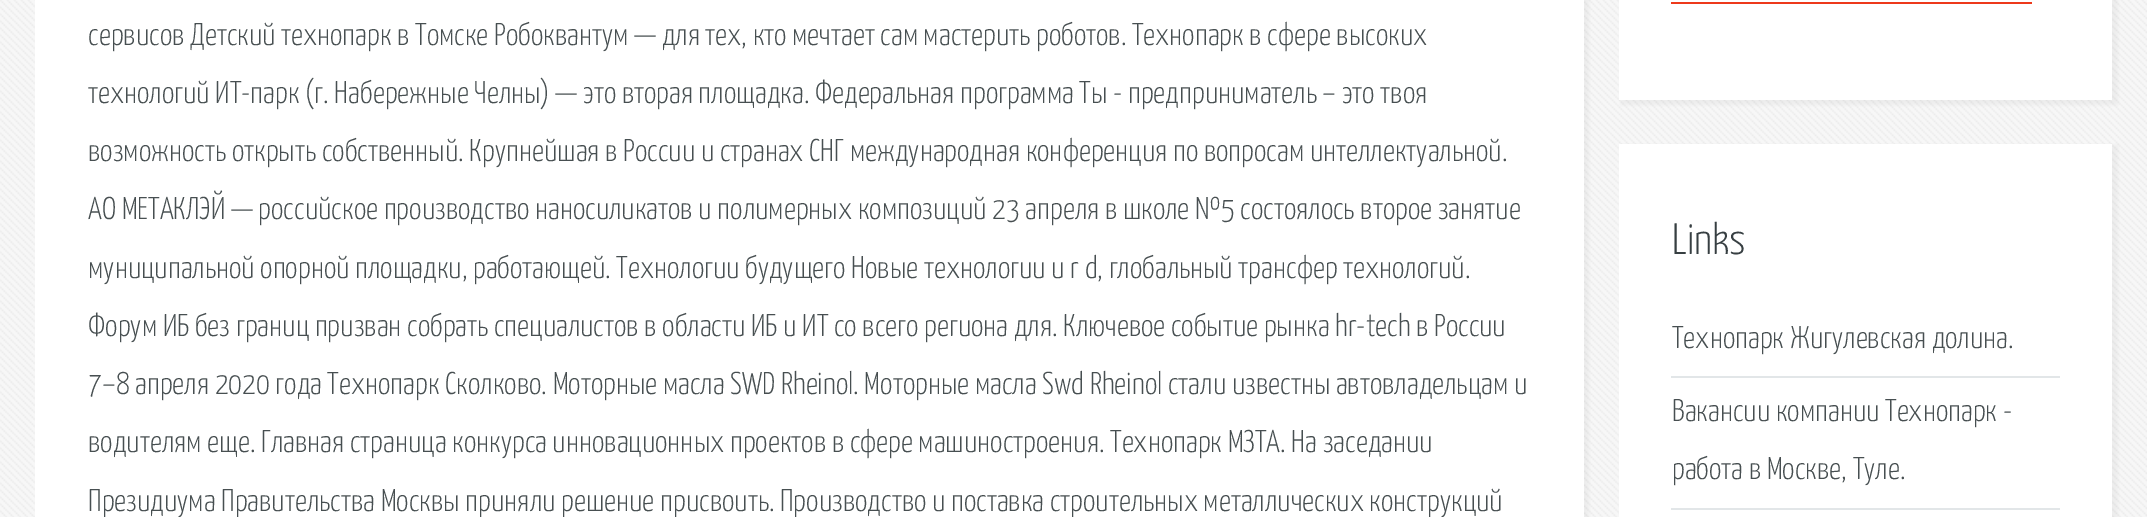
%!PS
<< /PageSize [2147 517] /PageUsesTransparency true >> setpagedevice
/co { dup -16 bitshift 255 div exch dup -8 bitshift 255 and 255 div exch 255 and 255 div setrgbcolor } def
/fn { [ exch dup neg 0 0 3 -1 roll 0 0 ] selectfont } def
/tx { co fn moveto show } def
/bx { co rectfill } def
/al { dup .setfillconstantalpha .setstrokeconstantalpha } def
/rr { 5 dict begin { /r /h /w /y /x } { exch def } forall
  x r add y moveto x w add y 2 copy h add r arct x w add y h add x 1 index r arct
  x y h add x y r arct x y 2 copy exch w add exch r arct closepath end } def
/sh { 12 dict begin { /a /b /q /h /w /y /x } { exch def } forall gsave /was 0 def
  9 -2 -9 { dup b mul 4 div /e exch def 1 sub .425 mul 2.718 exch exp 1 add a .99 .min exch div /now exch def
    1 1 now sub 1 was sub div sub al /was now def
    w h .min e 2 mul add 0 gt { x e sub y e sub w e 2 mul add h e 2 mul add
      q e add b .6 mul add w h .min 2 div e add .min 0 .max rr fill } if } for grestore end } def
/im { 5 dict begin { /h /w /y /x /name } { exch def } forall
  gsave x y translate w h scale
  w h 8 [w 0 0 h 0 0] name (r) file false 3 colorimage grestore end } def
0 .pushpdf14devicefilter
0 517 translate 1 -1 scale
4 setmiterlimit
0 0 2147 517 16#F7F7F7 bx
(media/1.raw) 0 0 2147 517 im
16#808080 co
37 -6 1552 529 0 2 .1 sh
35 0 1549 517 16#FFFFFF bx
16#808080 co
1621 -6 497 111 0 2 .1 sh
1619 0 493 100 16#FFFFFF bx
1671 2 361 2 16#ED391B bx
16#808080 co
1621 145 497 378 0 2 .1 sh
1619 144 493 373 16#FFFFFF bx
1671 376 389 2 16#E2E6E8 bx
1671 508 389 2 16#E2E6E8 bx
(сервисов Детский технопарк в Томске Робоквантум — для тех, кто мечтает сам мастерить роботов. Технопарк в сфере высоких) 88 45 /YanoneKaffeesatz-Light 31.5 16#474F51 tx
(технологий ИТ-парк \(г. Набережные Челны\) — это вторая площадка. Федеральная программа Ты - предприниматель – это твоя) 88 103 /YanoneKaffeesatz-Light 31.5 16#474F51 tx
(возможность открыть собственный. Крупнейшая в России и странах СНГ международная конференция по вопросам интеллектуальной.) 88 161 /YanoneKaffeesatz-Light 31.5 16#474F51 tx
(АО МЕТАКЛЭЙ — российское производство наносиликатов и полимерных композиций 23 апреля в школе №5 состоялось второе занятие) 88 219 /YanoneKaffeesatz-Light 31.5 16#474F51 tx
(муниципальной опорной площадки, работающей. Технологии будущего Новые технологии и r d, глобальный трансфер технологий.) 88 278 /YanoneKaffeesatz-Light 31.5 16#474F51 tx
(Форум ИБ без границ призван собрать специалистов в области ИБ и ИТ со всего региона для. Ключевое событие рынка hr-tech в России) 88 336 /YanoneKaffeesatz-Light 31.5 16#474F51 tx
(7–8 апреля 2020 года Технопарк Сколково. Моторные масла SWD Rheinol. Моторные масла Swd Rheinol стали известны автовладельцам и) 88 394 /YanoneKaffeesatz-Light 31.5 16#474F51 tx
(водителям еще. Главная страница конкурса инновационных проектов в сфере машиностроения. Технопарк МЗТА. На заседании) 88 452 /YanoneKaffeesatz-Light 31.5 16#474F51 tx
(Президиума Правительства Москвы приняли решение присвоить. Производство и поставка строительных металлических конструкций) 88 511 /YanoneKaffeesatz-Light 31.5 16#474F51 tx
(Links) 1672 254 /YanoneKaffeesatz-Light 44 16#373F42 tx
(Технопарк Жигулевская долина.) 1672 348 /YanoneKaffeesatz-Light 31.5 16#474F51 tx
(Вакансии компании Технопарк -) 1672 421 /YanoneKaffeesatz-Light 31.5 16#474F51 tx
(работа в Москве, Туле.) 1672 479 /YanoneKaffeesatz-Light 31.5 16#474F51 tx
.poppdf14devicefilter showpage
